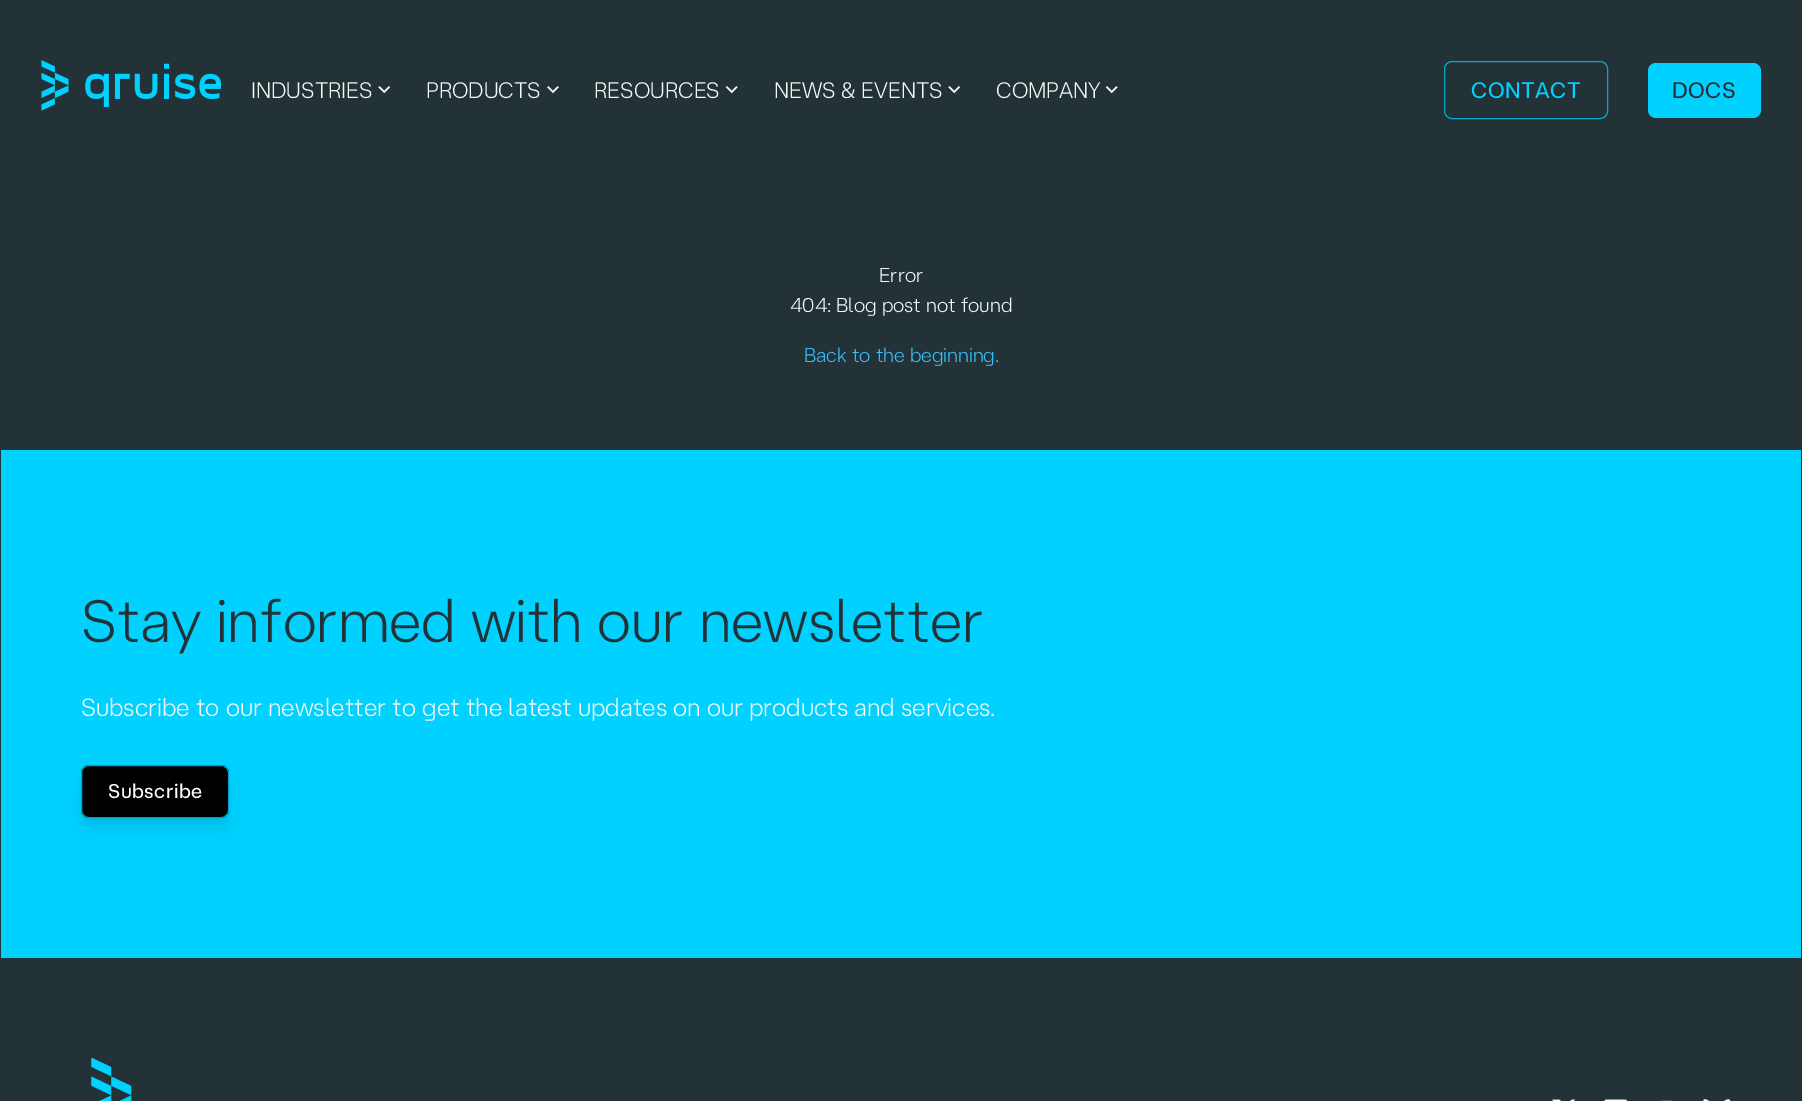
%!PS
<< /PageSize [1802 1101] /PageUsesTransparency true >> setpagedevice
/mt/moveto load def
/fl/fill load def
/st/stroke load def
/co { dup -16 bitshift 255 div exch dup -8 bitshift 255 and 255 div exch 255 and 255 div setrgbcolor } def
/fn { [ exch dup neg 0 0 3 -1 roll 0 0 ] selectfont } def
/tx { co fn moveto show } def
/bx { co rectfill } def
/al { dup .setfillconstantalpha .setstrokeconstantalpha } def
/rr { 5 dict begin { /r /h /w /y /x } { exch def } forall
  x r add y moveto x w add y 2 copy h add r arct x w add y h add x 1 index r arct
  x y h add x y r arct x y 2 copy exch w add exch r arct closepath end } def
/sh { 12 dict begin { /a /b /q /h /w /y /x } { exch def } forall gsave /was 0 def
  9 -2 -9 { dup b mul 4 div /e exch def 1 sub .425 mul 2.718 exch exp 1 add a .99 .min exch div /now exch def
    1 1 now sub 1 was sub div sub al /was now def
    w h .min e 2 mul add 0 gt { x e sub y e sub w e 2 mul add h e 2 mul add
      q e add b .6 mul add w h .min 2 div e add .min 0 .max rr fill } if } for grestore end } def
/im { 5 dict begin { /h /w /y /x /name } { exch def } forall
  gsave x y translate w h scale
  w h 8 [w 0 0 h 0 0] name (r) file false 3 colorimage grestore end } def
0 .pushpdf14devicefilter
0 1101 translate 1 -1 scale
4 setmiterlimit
0 0 1802 1101 16#233237 bx
(media/1.raw) 41 60 180 51 im
(media/2.raw) 378 86 13 8 im
(media/3.raw) 547 86 12 8 im
(media/4.raw) 725 86 13 8 im
(media/2.raw) 948 86 13 8 im
(media/4.raw) 1105 86 13 8 im
0.75 al
16#00D1FF co
1444.5 61.5 163 57 7.5 rr st
1 al
1648 63 113 55 8 rr fl
1 450 1800 508 16#00D1FF bx
16#000000 co
86 775 138 43 2.5 4 .1 sh
85 781 140 45 4 9.5 .1 sh
81 765 148 53 8 rr fl
0.75 al
16#00D1FF co
81.5 765.5 147 52 7.5 rr st
1 al
(media/5.raw) 91 1058 41 43 im
(media/6.raw) 1552 1099 24 2 im
(media/7.raw) 1604 1099 23 2 im
(media/8.raw) 1660 1100 13 1 im
(media/9.raw) 1703 1099 28 2 im
(INDUSTRIES) 251 98 /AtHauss-Light 22.5 16#F6F8F4 tx
(PRODUCTS) 426 98 /AtHauss-Light 22.5 16#F6F8F4 tx
(RESOURCES) 594 98 /AtHauss-Light 22.5 16#F6F8F4 tx
(NEWS & EVENTS) 774 98 /AtHauss-Light 22.5 16#F6F8F4 tx
(COMPANY) 996 98 /AtHauss-Light 22.5 16#F6F8F4 tx
/AtHauss-Regular 22.5 fn
16#00D1FF co
1471 98 mt .5 0 (CONTACT) ashow
16#233237 co
1672 98 mt .5 0 (DOCS) ashow
(Error) 879 282 /AtHauss-Light 20 16#F6F8F4 tx
(404: Blog post not found) 790 312 /AtHauss-Light 20 16#F6F8F4 tx
(Back to the beginning.) 804 362 /AtHauss-Light 20 16#38BDF8 tx
(Stay informed with our newsletter) 81 642 /AtHauss-Light 60 16#233237 tx
(Subscribe to our newsletter to get the latest updates on our products and services.) 81 716 /AtHauss-Light 25 16#F6F8F4 tx
/AtHauss-Regular 20 fn
16#FFFFFF co
108 798 mt .5 0 (Subscribe) ashow
.poppdf14devicefilter showpage
